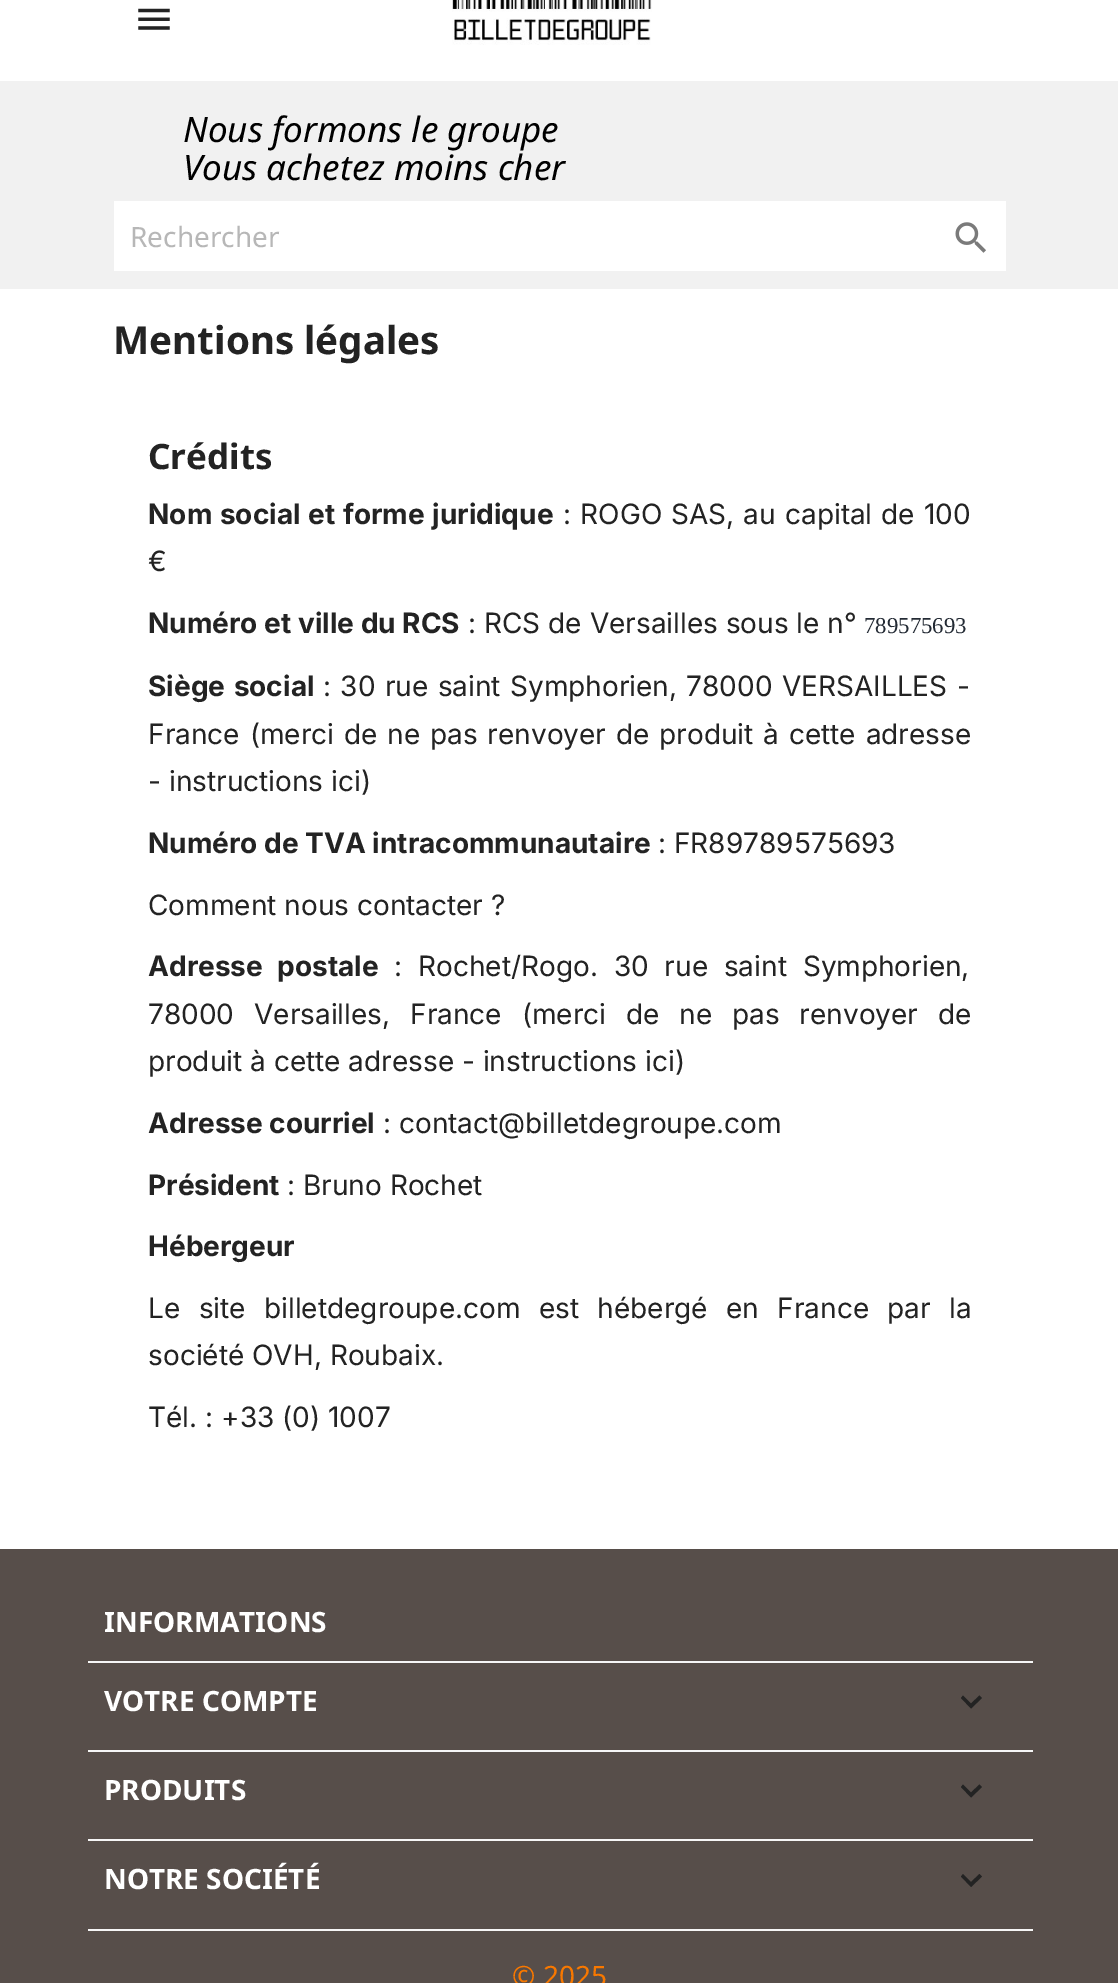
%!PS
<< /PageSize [1118 1983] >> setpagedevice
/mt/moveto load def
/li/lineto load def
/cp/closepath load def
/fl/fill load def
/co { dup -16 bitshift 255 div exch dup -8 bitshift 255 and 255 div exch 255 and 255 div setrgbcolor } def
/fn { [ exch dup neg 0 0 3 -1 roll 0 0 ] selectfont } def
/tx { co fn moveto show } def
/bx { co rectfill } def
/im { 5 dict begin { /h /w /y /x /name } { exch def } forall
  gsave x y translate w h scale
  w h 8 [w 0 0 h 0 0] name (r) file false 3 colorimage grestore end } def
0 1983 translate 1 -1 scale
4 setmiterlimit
0 0 1118 1983 16#FFFFFF bx
0 81 1118 208 16#F1F1F1 bx
(media/1.raw) 138 8 32 22 im
(media/2.raw) 452 0 200 45 im
114 201 892 70 16#FFFFFF bx
(media/3.raw) 955 222 31 31 im
0 1549 1118 434 16#574E4A bx
88 1661 945 2 16#F6F6F6 bx
88 1750 945 2 16#F6F6F6 bx
16#232323 co
963 1695.5 mt 971 1703.5 li 979.5 1695.5 li 982 1698 li 971 1708.5 li 961 1698 li cp fl
88 1839 945 2 16#F6F6F6 bx
16#232323 co
963 1784.5 mt 971 1792.5 li 979.5 1784.5 li 982 1787 li 971 1797.5 li 961 1787 li cp fl
88 1929 945 2 16#F6F6F6 bx
16#232323 co
963 1874 mt 971 1882 li 979.5 1874 li 982 1876.5 li 971 1887 li 961 1876.5 li cp fl
(Nous formons le groupe) 183 142 /NotoSans-Italic 35 16#000000 tx
(Vous achetez moins cher) 183 180 /NotoSans-Italic 35 16#000000 tx
(Rechercher) 130 247 /NotoSans-Regular 28 16#B7B7B7 tx
(Mentions légales) 113 354 /NotoSans-Bold 38.5 16#232323 tx
(Crédits) 148 469 /NotoSans-Bold 35 16#232323 tx
/Inter-Bold 28 fn
148 524 mt 1 0 32 (Nom social et forme juridique) widthshow
/Inter-Regular 28 fn
563 524 mt 1.25 0 32 (: ROGO SAS, au capital de 100) widthshow
(€) 148 571 /Inter-Regular 28 16#232323 tx
(Numéro et ville du RCS) 148 633 /Inter-Bold 28 16#232323 tx
(: RCS de Versailles sous le n°) 468 633 /Inter-Regular 28 16#232323 tx
(789575693) 864 633 /LiberationSerif-Regular 22.75 16#232A34 tx
/Inter-Bold 28 fn
16#232323 co
148 696 mt 2 0 32 (Siège social) widthshow
/Inter-Regular 28 fn
323 696 mt 1.5 0 32 (: 30 rue saint Symphorien, 78000 VERSAILLES -) widthshow
148 744 mt 2 0 32 (France \(merci de ne pas renvoyer de produit à cette adresse) widthshow
(- instructions ici\)) 148 791 /Inter-Regular 28 16#232323 tx
(Numéro de TVA intracommunautaire) 148 853 /Inter-Bold 28 16#232323 tx
(: FR89789575693) 658 853 /Inter-Regular 28 16#232323 tx
(Comment nous contacter ?) 148 915 /Inter-Regular 28 16#232323 tx
/Inter-Bold 28 fn
148 976 mt 8 0 32 (Adresse postale) widthshow
/Inter-Regular 28 fn
394 976 mt 8 0 32 (: Rochet/Rogo. 30 rue saint Symphorien,) widthshow
148 1024 mt 12 0 32 (78000 Versailles, France \(merci de ne pas renvoyer de) widthshow
(produit à cette adresse - instructions ici\)) 148 1071 /Inter-Regular 28 16#232323 tx
(Adresse courriel) 148 1133 /Inter-Bold 28 16#232323 tx
(: contact@billetdegroupe.com) 383 1133 /Inter-Regular 28 16#232323 tx
(Président) 148 1195 /Inter-Bold 28 16#232323 tx
(: Bruno Rochet) 287 1195 /Inter-Regular 28 16#232323 tx
(Hébergeur) 148 1256 /Inter-Bold 28 16#232323 tx
/Inter-Regular 28 fn
148 1318 mt 10.5 0 32 (Le site billetdegroupe.com est hébergé en France par la) widthshow
(société OVH, Roubaix.) 148 1365 /Inter-Regular 28 16#232323 tx
(Tél. : +33 \(0\) 1007) 148 1427 /Inter-Regular 28 16#232323 tx
(INFORMATIONS) 104 1632 /NotoSans-Bold 28 16#FFFFFF tx
(VOTRE COMPTE) 104 1711 /NotoSans-Bold 28 16#FFFFFF tx
(PRODUITS) 104 1800 /NotoSans-Bold 28 16#FFFFFF tx
(NOTRE SOCIÉTÉ) 104 1889 /NotoSans-Bold 28 16#FFFFFF tx
(© 2025) 512 1986 /NotoSans-Regular 28 16#F87800 tx
showpage
